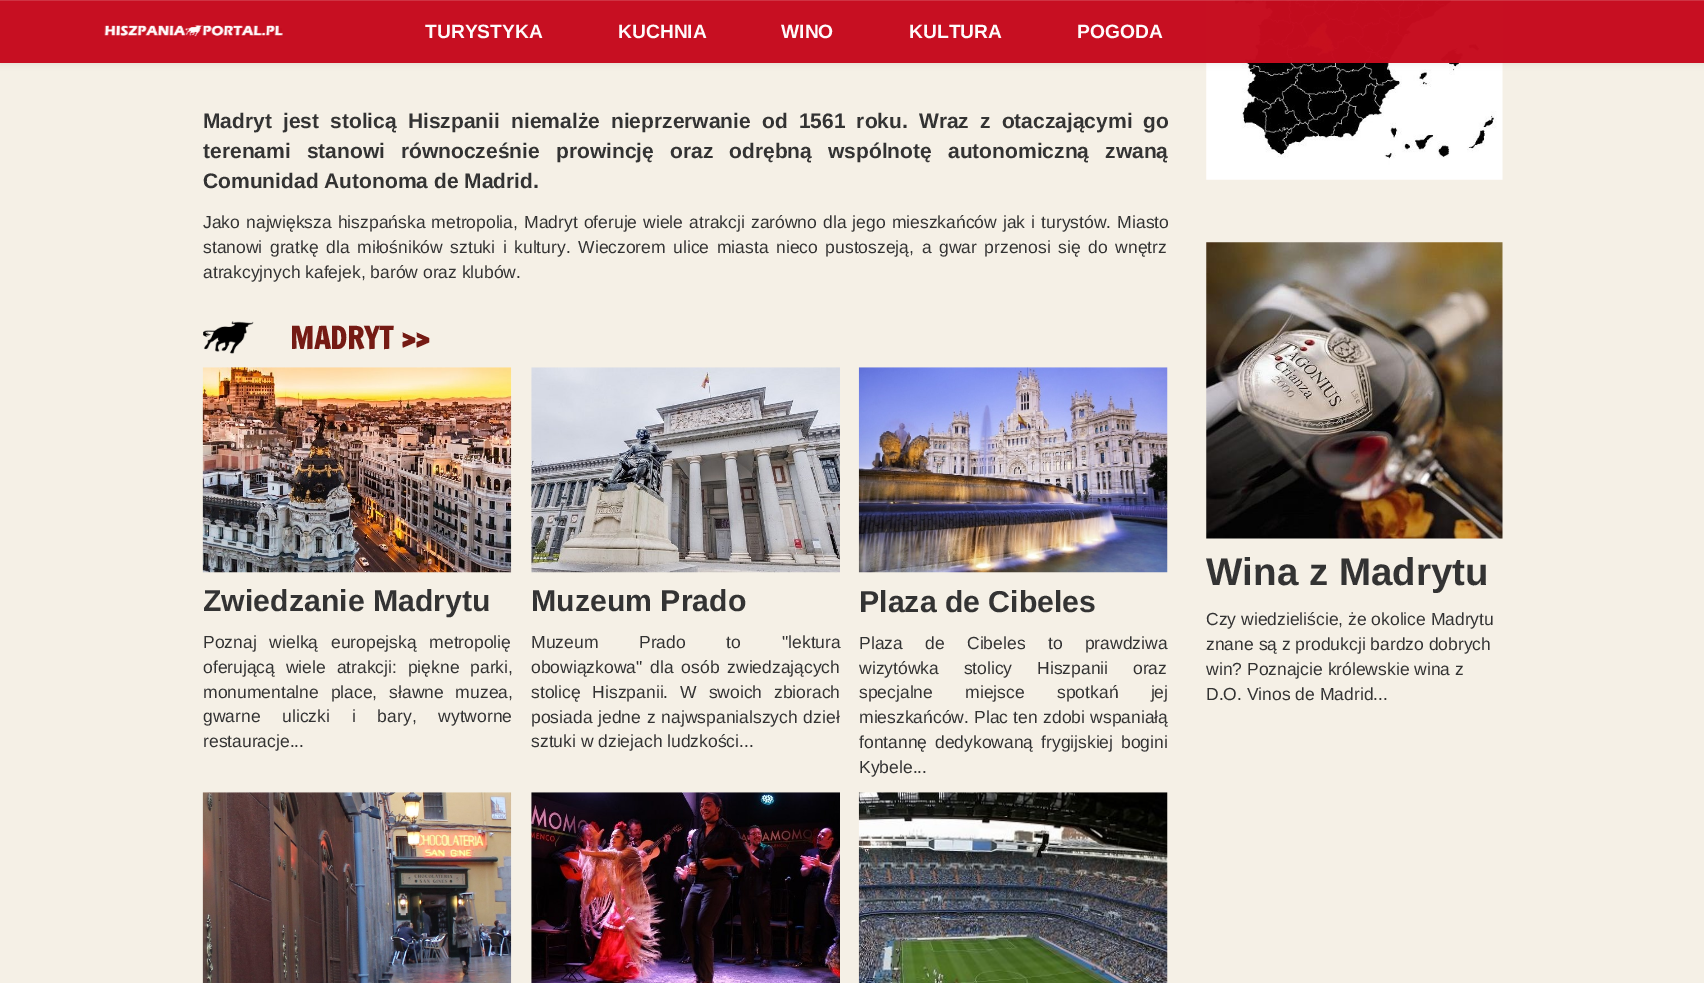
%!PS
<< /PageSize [1704 983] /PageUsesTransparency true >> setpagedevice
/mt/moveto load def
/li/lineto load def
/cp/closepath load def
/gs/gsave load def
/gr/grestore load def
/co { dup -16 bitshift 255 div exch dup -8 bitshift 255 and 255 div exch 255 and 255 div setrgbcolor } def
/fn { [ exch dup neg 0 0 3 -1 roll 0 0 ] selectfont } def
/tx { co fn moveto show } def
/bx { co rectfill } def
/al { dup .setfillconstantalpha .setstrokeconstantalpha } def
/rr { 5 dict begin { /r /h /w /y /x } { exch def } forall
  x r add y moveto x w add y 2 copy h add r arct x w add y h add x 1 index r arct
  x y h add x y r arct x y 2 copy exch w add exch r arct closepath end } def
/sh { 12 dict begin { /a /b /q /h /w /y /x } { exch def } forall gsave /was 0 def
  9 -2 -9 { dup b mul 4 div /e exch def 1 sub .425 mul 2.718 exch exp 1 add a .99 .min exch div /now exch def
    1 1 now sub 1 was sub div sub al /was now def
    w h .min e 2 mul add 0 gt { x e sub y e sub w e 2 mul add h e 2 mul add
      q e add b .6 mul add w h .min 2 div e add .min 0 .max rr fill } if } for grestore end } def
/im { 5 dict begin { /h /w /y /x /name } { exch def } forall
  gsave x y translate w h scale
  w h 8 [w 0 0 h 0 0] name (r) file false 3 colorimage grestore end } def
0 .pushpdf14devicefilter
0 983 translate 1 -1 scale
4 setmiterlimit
0 0 1704 983 16#F5F0E6 bx
(media/9.raw) 1206 0 297 180 im
gs
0 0 mt 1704 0 li 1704 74 li 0 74 li cp 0 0 mt 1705 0 li 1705 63 li 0 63 li cp eoclip newpath
16#000000 co
0 1 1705 63 0 3 .07 sh
gr
0.98 al
0 0 1704 63 16#C60B1E bx
0.15 al
0 0 1704 1 16#FFFFFF bx
1 al
(media/1.raw) 104 25 179 12 im
(media/2.raw) 203 321 51 33 im
(media/3.raw) 202 367 310 206 im
(media/4.raw) 531 367 309 206 im
(media/5.raw) 858 367 310 206 im
(media/6.raw) 202 792 310 191 im
(media/7.raw) 531 792 309 191 im
(media/8.raw) 858 792 310 191 im
(media/10.raw) 1206 242 297 297 im
(TURYSTYKA) 425 38 /LiberationSans-Bold 19.25 16#FEFAFB tx
(KUCHNIA) 618 38 /LiberationSans-Bold 19.25 16#FEFAFB tx
(WINO) 781 38 /LiberationSans-Bold 19.25 16#FEFAFB tx
(KULTURA) 909 38 /LiberationSans-Bold 19.25 16#FEFAFB tx
(POGODA) 1077 38 /LiberationSans-Bold 19.25 16#FEFAFB tx
/LiberationSans-Bold 21 fn
16#333333 co
203 128 mt 5.25 0 32 (Madryt jest stolicą Hiszpanii niemalże nieprzerwanie od 1561 roku. Wraz z otaczającymi go) widthshow
203 158 mt 10.25 0 32 (terenami stanowi równocześnie prowincję oraz odrębną wspólnotę autonomiczną zwaną) widthshow
(Comunidad Autonoma de Madrid.) 203 188 /LiberationSans-Bold 21 16#333333 tx
/LiberationSans-Regular 17.5 fn
203 228 mt 1.25 0 32 (Jako największa hiszpańska metropolia, Madryt oferuje wiele atrakcji zarówno dla jego mieszkańców jak i turystów. Miasto) widthshow
203 253 mt 2.75 0 32 (stanowi gratkę dla miłośników sztuki i kultury. Wieczorem ulice miasta nieco pustoszeją, a gwar przenosi się do wnętrz) widthshow
(atrakcyjnych kafejek, barów oraz klubów.) 203 278 /LiberationSans-Regular 17.5 16#333333 tx
(MADRYT >>) 290 349 /FrancoisOne-Bold 30 16#751B14 tx
(Zwiedzanie Madrytu) 203 611 /LiberationSans-Bold 30.25 16#333333 tx
/LiberationSans-Regular 17.5 fn
203 648 mt 8 0 32 (Poznaj wielką europejską metropolię) widthshow
203 673 mt 6 0 32 (oferującą wiele atrakcji: piękne parki,) widthshow
203 698 mt 7 0 32 (monumentalne place, sławne muzea,) widthshow
203 722 mt 17 0 32 (gwarne uliczki i bary, wytworne) widthshow
(restauracje...) 203 747 /LiberationSans-Regular 17.5 16#333333 tx
(Muzeum Prado) 531 611 /LiberationSans-Bold 30.25 16#333333 tx
/LiberationSans-Regular 17.5 fn
531 648 mt 36 0 32 (Muzeum Prado to "lektura) widthshow
531 673 mt 3 0 32 (obowiązkowa" dla osób zwiedzających) widthshow
531 698 mt 7 0 32 (stolicę Hiszpanii. W swoich zbiorach) widthshow
531 723 mt 1 0 32 (posiada jedne z najwspanialszych dzieł) widthshow
(sztuki w dziejach ludzkości...) 531 747 /LiberationSans-Regular 17.5 16#333333 tx
(Plaza de Cibeles) 859 612 /LiberationSans-Bold 30.25 16#333333 tx
/LiberationSans-Regular 17.5 fn
859 649 mt 17.5 0 32 (Plaza de Cibeles to prawdziwa) widthshow
859 674 mt 20 0 32 (wizytówka stolicy Hiszpanii oraz) widthshow
859 698 mt 27.5 0 32 (specjalne miejsce spotkań jej) widthshow
(mieszkańców.) 859 723 /LiberationSans-Regular 17.5 16#333333 tx
974 723 mt .5 0 32 (Plac ten zdobi wspaniałą) widthshow
859 748 mt 3 0 32 (fontannę dedykowaną frygijskiej bogini) widthshow
(Kybele...) 859 773 /LiberationSans-Regular 17.5 16#333333 tx
(Wina z Madrytu) 1206 585 /LiberationSans-Bold 38.5 16#333333 tx
(Czy wiedzieliście, że okolice Madrytu) 1206 625 /LiberationSans-Regular 17.5 16#333333 tx
(znane są z produkcji bardzo dobrych) 1206 650 /LiberationSans-Regular 17.5 16#333333 tx
(win? Poznajcie królewskie wina z) 1206 675 /LiberationSans-Regular 17.5 16#333333 tx
(D.O. Vinos de Madrid...) 1206 700 /LiberationSans-Regular 17.5 16#333333 tx
.poppdf14devicefilter showpage
